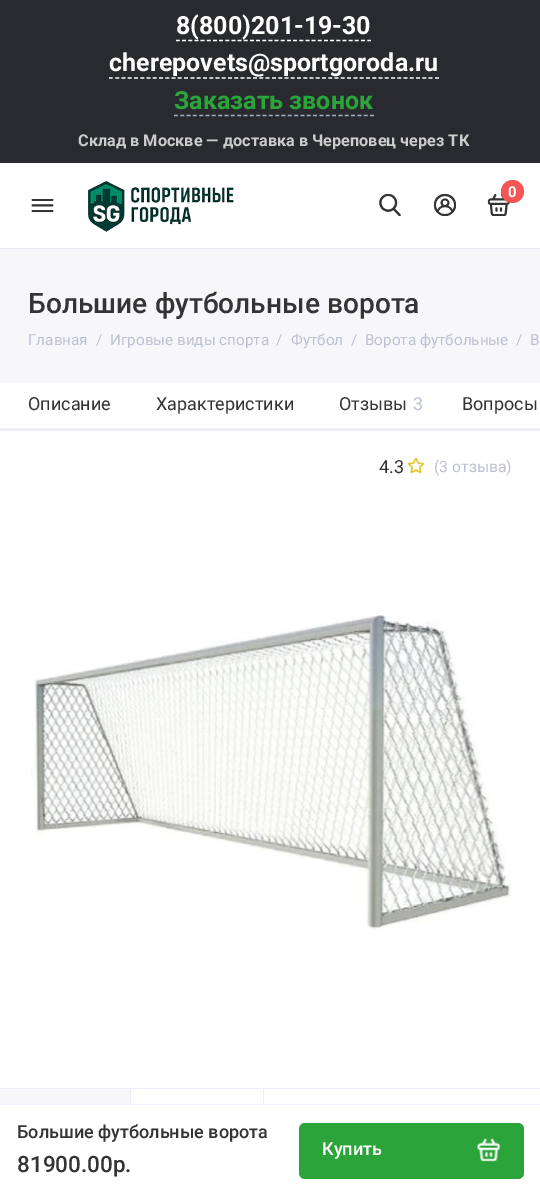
%!PS
<< /PageSize [540 1194] >> setpagedevice
/mt/moveto load def
/li/lineto load def
/fl/fill load def
/st/stroke load def
/lw/setlinewidth load def
/co { dup -16 bitshift 255 div exch dup -8 bitshift 255 and 255 div exch 255 and 255 div setrgbcolor } def
/fn { [ exch dup neg 0 0 3 -1 roll 0 0 ] selectfont } def
/tx { co fn moveto show } def
/bx { co rectfill } def
/ci { newpath 0 360 arc closepath } def
/rr { 5 dict begin { /r /h /w /y /x } { exch def } forall
  x r add y moveto x w add y 2 copy h add r arct x w add y h add x 1 index r arct
  x y h add x y r arct x y 2 copy exch w add exch r arct closepath end } def
/im { 5 dict begin { /h /w /y /x /name } { exch def } forall
  gsave x y translate w h scale
  w h 8 [w 0 0 h 0 0] name (r) file false 3 colorimage grestore end } def
0 1194 translate 1 -1 scale
4 setmiterlimit
0 0 540 1194 16#F7F7FB bx
0 0 540 163 16#292A30 bx
16#FFFFFF co
1.2 lw
[3.75 2.42] 0 setdash
176 40.5 mt 371 40.5 li st
[3.75 2.52] 0 setdash
109 78 mt 439 78 li st
16#9DB2BE co
[3.75 2.58] 0 setdash
174 115.5 mt 374 115.5 li st
0 163 540 85 16#FFFFFF bx
0 248 540 1 16#E4E7F1 bx
(media/1.raw) 88 181 146 51 im
(media/2.raw) 487 194 23 22 im
16#F45656 co
512.5 191.5 11.5 ci fl
(media/3.raw) 379 194 22 22 im
(media/4.raw) 434 194 22 22 im
(media/5.raw) 31 199 23 14 im
0 383 540 45 16#FFFFFF bx
0 428 540 3 16#EDF0F8 bx
0 1105 540 89 16#FFFFFF bx
0 1104 540 1 16#EDF0F8 bx
16#2BA539 co
299 1123 225 56 6 rr fl
(media/6.raw) 477 1138 24 24 im
0 431 540 673 16#FFFFFF bx
(media/7.raw) 407 457 18 17 im
(media/8.raw) 31 615 482 315 im
0 1088 540 1 16#EDEDF9 bx
0 1089 130 15 16#F7F7FB bx
130 1089 1 15 16#EDEDF9 bx
263 1089 1 15 16#EDEDF9 bx
(8\(800\)201-19-30) 176 34 /Roboto-Bold 25 16#FFFFFF tx
(cherepovets@sportgoroda.ru) 109 71 /Roboto-Bold 25 16#FFFFFF tx
(Заказать звонок) 174 109 /Roboto-Bold 25 16#2BA539 tx
(Склад в Москве — доставка в Череповец через ТК) 78 146 /Roboto-Bold 16.25 16#CCCCCC tx
(0) 508 197 /Roboto-Bold 15 16#FFFFFF tx
(Большие футбольные ворота) 28 313 /Roboto-Medium 28.1 16#343434 tx
(Главная) 28 345 /Roboto-Regular 15.25 16#BDC2D3 tx
(/) 96 345 /Roboto-Regular 15.25 16#BDC2D3 tx
(Игровые виды спорта) 110 345 /Roboto-Regular 15.25 16#BDC2D3 tx
(/) 276 345 /Roboto-Regular 15.25 16#BDC2D3 tx
(Футбол) 291 345 /Roboto-Regular 15.25 16#BDC2D3 tx
(/) 351 345 /Roboto-Regular 15.25 16#BDC2D3 tx
(Ворота футбольные) 365 345 /Roboto-Regular 15.25 16#BDC2D3 tx
(/) 516 345 /Roboto-Regular 15.25 16#BDC2D3 tx
(В) 530 345 /Roboto-Regular 15.25 16#BDC2D3 tx
(Описание) 28 410 /Roboto-Regular 18 16#343434 tx
(Характеристики) 156 410 /Roboto-Regular 18 16#343434 tx
(Отзывы) 339 410 /Roboto-Regular 18 16#343434 tx
(3) 413 410 /Roboto-Regular 18 16#BDC2D3 tx
(Вопросы) 462 410 /Roboto-Regular 18 16#343434 tx
(Большие футбольные ворота) 17 1138 /Roboto-Medium 18 16#343434 tx
(81900.00р.) 17 1172 /Roboto-Medium 22.5 16#343434 tx
(Купить) 322 1155 /Roboto-Medium 18 16#FFFFFF tx
(4.3) 379 473 /Roboto-Regular 18 16#343434 tx
(\(3 отзыва\)) 434 472 /Roboto-Regular 15.75 16#BDC2D3 tx
showpage
